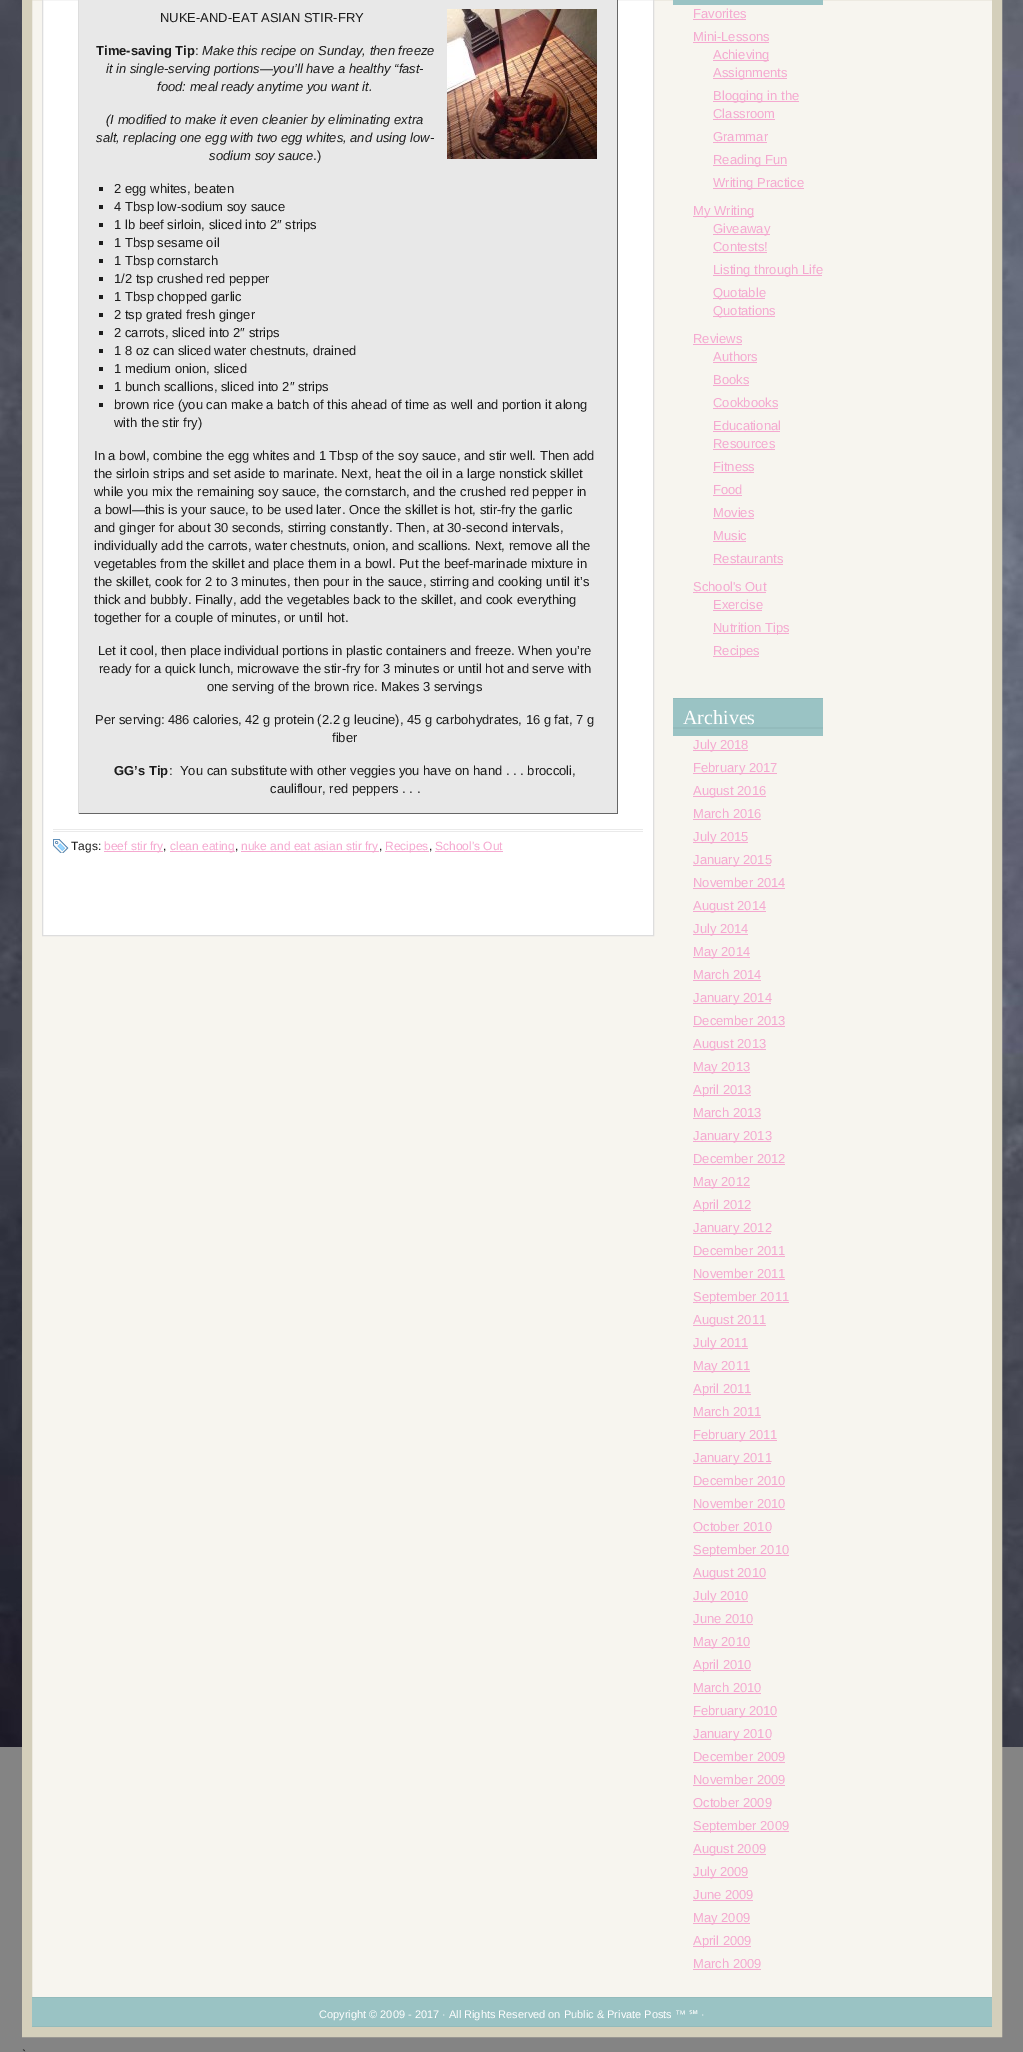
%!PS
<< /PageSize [1023 2052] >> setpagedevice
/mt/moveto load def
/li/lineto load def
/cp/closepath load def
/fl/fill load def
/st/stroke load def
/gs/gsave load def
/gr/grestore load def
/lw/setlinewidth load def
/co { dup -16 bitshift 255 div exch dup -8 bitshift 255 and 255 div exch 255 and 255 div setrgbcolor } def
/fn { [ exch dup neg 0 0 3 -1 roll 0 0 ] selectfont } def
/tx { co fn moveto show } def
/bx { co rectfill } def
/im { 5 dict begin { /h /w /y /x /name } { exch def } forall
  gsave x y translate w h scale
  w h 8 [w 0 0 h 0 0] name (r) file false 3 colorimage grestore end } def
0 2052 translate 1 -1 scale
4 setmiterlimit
0 0 1023 2052 16#848484 bx
(media/1.raw) 0 0 1023 1747 im
32 0 960 1997 16#F7F5EF bx
16#D4CFBB co
10 lw
27 -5 970 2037 rectstroke
16#FFFFFF co
42.5 -.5 mt 653.5 -.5 li 653.5 935.5 li 42.5 935.5 li cp gs fl gr
16#DDDDDD co
1 lw
st
79 0 538 813 16#E8E8E8 bx
617 0 1 814 16#666666 bx
78 813 540 1 16#666666 bx
78 0 1 814 16#DDDDDD bx
(media/2.raw) 447 9 150 150 im
99 187 4 4 16#1C1C1C bx
99 205 4 4 16#1C1C1C bx
99 223 4 4 16#1C1C1C bx
99 241 4 4 16#1C1C1C bx
99 259 4 4 16#1C1C1C bx
99 277 4 4 16#1C1C1C bx
99 295 4 4 16#1C1C1C bx
99 313 4 4 16#1C1C1C bx
99 331 4 4 16#1C1C1C bx
99 349 4 4 16#1C1C1C bx
99 367 4 4 16#1C1C1C bx
99 385 4 4 16#1C1C1C bx
99 403 4 4 16#1C1C1C bx
53 829 590 1 16#EAEAEA bx
53 831 590 1 16#EAEAEA bx
(media/3.raw) 53 839 16 14 im
104 851 59 1 16#F5A9D0 bx
170 851 65 1 16#F5A9D0 bx
241 851 138 1 16#F5A9D0 bx
385 851 44 1 16#F5A9D0 bx
435 851 68 1 16#F5A9D0 bx
673 0 150 5 16#9AC3C4 bx
693 19 53 1 16#F5A9D0 bx
693 42 76 1 16#F5A9D0 bx
713 60 56 1 16#F5A9D0 bx
713 78 74 1 16#F5A9D0 bx
713 101 86 1 16#F5A9D0 bx
713 119 62 1 16#F5A9D0 bx
713 142 54 1 16#F5A9D0 bx
713 165 74 1 16#F5A9D0 bx
713 188 91 1 16#F5A9D0 bx
693 216 61 1 16#F5A9D0 bx
713 234 57 1 16#F5A9D0 bx
713 252 54 1 16#F5A9D0 bx
713 275 109 1 16#F5A9D0 bx
713 298 52 1 16#F5A9D0 bx
713 316 62 1 16#F5A9D0 bx
693 344 49 1 16#F5A9D0 bx
713 362 44 1 16#F5A9D0 bx
713 385 36 1 16#F5A9D0 bx
713 408 65 1 16#F5A9D0 bx
713 431 67 1 16#F5A9D0 bx
713 449 62 1 16#F5A9D0 bx
713 472 41 1 16#F5A9D0 bx
713 495 29 1 16#F5A9D0 bx
713 518 41 1 16#F5A9D0 bx
713 541 33 1 16#F5A9D0 bx
713 564 70 1 16#F5A9D0 bx
693 592 73 1 16#F5A9D0 bx
713 610 49 1 16#F5A9D0 bx
713 633 76 1 16#F5A9D0 bx
713 656 46 1 16#F5A9D0 bx
673 698 150 1 16#93BBBC bx
(media/4.raw) 673 699 150 37 im
693 750 55 1 16#F5A9D0 bx
693 773 84 1 16#F5A9D0 bx
693 796 73 1 16#F5A9D0 bx
693 819 68 1 16#F5A9D0 bx
693 842 55 1 16#F5A9D0 bx
693 865 78 1 16#F5A9D0 bx
693 888 92 1 16#F5A9D0 bx
693 911 73 1 16#F5A9D0 bx
693 934 55 1 16#F5A9D0 bx
693 957 57 1 16#F5A9D0 bx
693 980 68 1 16#F5A9D0 bx
693 1003 78 1 16#F5A9D0 bx
693 1026 92 1 16#F5A9D0 bx
693 1049 73 1 16#F5A9D0 bx
693 1072 57 1 16#F5A9D0 bx
693 1095 58 1 16#F5A9D0 bx
693 1118 68 1 16#F5A9D0 bx
693 1141 78 1 16#F5A9D0 bx
693 1164 92 1 16#F5A9D0 bx
693 1187 57 1 16#F5A9D0 bx
693 1210 58 1 16#F5A9D0 bx
693 1233 78 1 16#F5A9D0 bx
693 1256 92 1 16#F5A9D0 bx
693 1279 92 1 16#F5A9D0 bx
693 1302 96 1 16#F5A9D0 bx
693 1325 73 1 16#F5A9D0 bx
693 1348 55 1 16#F5A9D0 bx
693 1371 57 1 16#F5A9D0 bx
693 1394 58 1 16#F5A9D0 bx
693 1417 68 1 16#F5A9D0 bx
693 1440 84 1 16#F5A9D0 bx
693 1463 78 1 16#F5A9D0 bx
693 1486 92 1 16#F5A9D0 bx
693 1509 92 1 16#F5A9D0 bx
693 1532 78 1 16#F5A9D0 bx
693 1555 96 1 16#F5A9D0 bx
693 1578 73 1 16#F5A9D0 bx
693 1601 55 1 16#F5A9D0 bx
693 1624 60 1 16#F5A9D0 bx
693 1647 57 1 16#F5A9D0 bx
693 1670 58 1 16#F5A9D0 bx
693 1693 68 1 16#F5A9D0 bx
693 1716 84 1 16#F5A9D0 bx
693 1739 78 1 16#F5A9D0 bx
693 1762 92 1 16#F5A9D0 bx
693 1785 92 1 16#F5A9D0 bx
693 1808 78 1 16#F5A9D0 bx
693 1831 96 1 16#F5A9D0 bx
693 1854 73 1 16#F5A9D0 bx
693 1877 55 1 16#F5A9D0 bx
693 1900 60 1 16#F5A9D0 bx
693 1923 57 1 16#F5A9D0 bx
693 1946 58 1 16#F5A9D0 bx
693 1969 68 1 16#F5A9D0 bx
32 1997 960 30 16#93BBBC bx
32 1998 960 28 16#9AC3C4 bx
(NUKE-AND-EAT ASIAN STIR-FRY) 160 22 /LiberationSans-Regular 13 16#1C1C1C tx
(Time-saving Tip) 96 55 /LiberationSans-Bold 13 16#1C1C1C tx
(:) 195 55 /LiberationSans-Regular 13 16#1C1C1C tx
(Make this recipe on Sunday, then freeze) 202 55 /LiberationSans-Italic 13 16#1C1C1C tx
(it in single-serving portions—you’ll have a healthy “fast-) 106 73 /LiberationSans-Italic 13 16#1C1C1C tx
(food: meal ready anytime you want it.) 157 91 /LiberationSans-Italic 13 16#1C1C1C tx
(\(I modified to make it even cleanier by eliminating extra) 106 124 /LiberationSans-Italic 13 16#1C1C1C tx
(salt, replacing one egg with two egg whites, and using low-) 96 142 /LiberationSans-Italic 13 16#1C1C1C tx
(sodium soy sauce) 209 160 /LiberationSans-Italic 13 16#1C1C1C tx
(.\)) 313 160 /LiberationSans-Regular 13 16#1C1C1C tx
(2 egg whites, beaten) 114 193 /LiberationSans-Regular 13 16#1C1C1C tx
(4 Tbsp low-sodium soy sauce) 114 211 /LiberationSans-Regular 13 16#1C1C1C tx
(1 lb beef sirloin, sliced into 2″ strips) 114 229 /LiberationSans-Regular 13 16#1C1C1C tx
(1 Tbsp sesame oil) 114 247 /LiberationSans-Regular 13 16#1C1C1C tx
(1 Tbsp cornstarch) 114 265 /LiberationSans-Regular 13 16#1C1C1C tx
(1/2 tsp crushed red pepper) 114 283 /LiberationSans-Regular 13 16#1C1C1C tx
(1 Tbsp chopped garlic) 114 301 /LiberationSans-Regular 13 16#1C1C1C tx
(2 tsp grated fresh ginger) 114 319 /LiberationSans-Regular 13 16#1C1C1C tx
(2 carrots, sliced into 2″ strips) 114 337 /LiberationSans-Regular 13 16#1C1C1C tx
(1 8 oz can sliced water chestnuts, drained) 114 355 /LiberationSans-Regular 13 16#1C1C1C tx
(1 medium onion, sliced) 114 373 /LiberationSans-Regular 13 16#1C1C1C tx
(1 bunch scallions, sliced into 2″ strips) 114 391 /LiberationSans-Regular 13 16#1C1C1C tx
(brown rice \(you can make a batch of this ahead of time as well and portion it along) 114 409 /LiberationSans-Regular 13 16#1C1C1C tx
(with the stir fry\)) 114 427 /LiberationSans-Regular 13 16#1C1C1C tx
(In a bowl, combine the egg whites and 1 Tbsp of the soy sauce, and stir well. Then add) 94 460 /LiberationSans-Regular 13 16#1C1C1C tx
(the sirloin strips and set aside to marinate. Next, heat the oil in a large nonstick skillet) 94 478 /LiberationSans-Regular 13 16#1C1C1C tx
(while you mix the remaining soy sauce, the cornstarch, and the crushed red pepper in) 94 496 /LiberationSans-Regular 13 16#1C1C1C tx
(a bowl—this is your sauce, to be used later. Once the skillet is hot, stir-fry the garlic) 94 514 /LiberationSans-Regular 13 16#1C1C1C tx
(and ginger for about 30 seconds, stirring constantly. Then, at 30-second intervals,) 94 532 /LiberationSans-Regular 13 16#1C1C1C tx
(individually add the carrots, water chestnuts, onion, and scallions. Next, remove all the) 94 550 /LiberationSans-Regular 13 16#1C1C1C tx
(vegetables from the skillet and place them in a bowl. Put the beef-marinade mixture in) 94 568 /LiberationSans-Regular 13 16#1C1C1C tx
(the skillet, cook for 2 to 3 minutes, then pour in the sauce, stirring and cooking until it’s) 94 586 /LiberationSans-Regular 13 16#1C1C1C tx
(thick and bubbly. Finally, add the vegetables back to the skillet, and cook everything) 94 604 /LiberationSans-Regular 13 16#1C1C1C tx
(together for a couple of minutes, or until hot.) 94 622 /LiberationSans-Regular 13 16#1C1C1C tx
(Let it cool, then place individual portions in plastic containers and freeze. When you’re) 98 655 /LiberationSans-Regular 13 16#1C1C1C tx
(ready for a quick lunch, microwave the stir-fry for 3 minutes or until hot and serve with) 99 673 /LiberationSans-Regular 13 16#1C1C1C tx
(one serving of the brown rice. Makes 3 servings) 207 691 /LiberationSans-Regular 13 16#1C1C1C tx
(Per serving: 486 calories, 42 g protein \(2.2 g leucine\), 45 g carbohydrates, 16 g fat, 7 g) 95 724 /LiberationSans-Regular 13 16#1C1C1C tx
(fiber) 332 742 /LiberationSans-Regular 13 16#1C1C1C tx
(GG’s Tip) 114 775 /LiberationSans-Bold 13 16#1C1C1C tx
(:  You can substitute with other veggies you have on hand . . . broccoli,) 169 775 /LiberationSans-Regular 13 16#1C1C1C tx
(cauliflour, red peppers . . .) 270 793 /LiberationSans-Regular 13 16#1C1C1C tx
(Tags:) 71 850 /LiberationSans-Regular 12 16#1C1C1C tx
(beef stir fry) 104 850 /LiberationSans-Regular 12 16#F5A9D0 tx
(,) 163 850 /LiberationSans-Regular 12 16#1C1C1C tx
(clean eating) 170 850 /LiberationSans-Regular 12 16#F5A9D0 tx
(,) 235 850 /LiberationSans-Regular 12 16#1C1C1C tx
(nuke and eat asian stir fry) 241 850 /LiberationSans-Regular 12 16#F5A9D0 tx
(,) 379 850 /LiberationSans-Regular 12 16#1C1C1C tx
(Recipes) 385 850 /LiberationSans-Regular 12 16#F5A9D0 tx
(,) 429 850 /LiberationSans-Regular 12 16#1C1C1C tx
(School's Out) 435 850 /LiberationSans-Regular 12 16#F5A9D0 tx
(Favorites) 693 18 /LiberationSans-Regular 13 16#F5A9D0 tx
(Mini-Lessons) 693 41 /LiberationSans-Regular 13 16#F5A9D0 tx
(Achieving) 713 59 /LiberationSans-Regular 13 16#F5A9D0 tx
(Assignments) 713 77 /LiberationSans-Regular 13 16#F5A9D0 tx
(Blogging in the) 713 100 /LiberationSans-Regular 13 16#F5A9D0 tx
(Classroom) 713 118 /LiberationSans-Regular 13 16#F5A9D0 tx
(Grammar) 713 141 /LiberationSans-Regular 13 16#F5A9D0 tx
(Reading Fun) 713 164 /LiberationSans-Regular 13 16#F5A9D0 tx
(Writing Practice) 713 187 /LiberationSans-Regular 13 16#F5A9D0 tx
(My Writing) 693 215 /LiberationSans-Regular 13 16#F5A9D0 tx
(Giveaway) 713 233 /LiberationSans-Regular 13 16#F5A9D0 tx
(Contests!) 713 251 /LiberationSans-Regular 13 16#F5A9D0 tx
(Listing through Life) 713 274 /LiberationSans-Regular 13 16#F5A9D0 tx
(Quotable) 713 297 /LiberationSans-Regular 13 16#F5A9D0 tx
(Quotations) 713 315 /LiberationSans-Regular 13 16#F5A9D0 tx
(Reviews) 693 343 /LiberationSans-Regular 13 16#F5A9D0 tx
(Authors) 713 361 /LiberationSans-Regular 13 16#F5A9D0 tx
(Books) 713 384 /LiberationSans-Regular 13 16#F5A9D0 tx
(Cookbooks) 713 407 /LiberationSans-Regular 13 16#F5A9D0 tx
(Educational) 713 430 /LiberationSans-Regular 13 16#F5A9D0 tx
(Resources) 713 448 /LiberationSans-Regular 13 16#F5A9D0 tx
(Fitness) 713 471 /LiberationSans-Regular 13 16#F5A9D0 tx
(Food) 713 494 /LiberationSans-Regular 13 16#F5A9D0 tx
(Movies) 713 517 /LiberationSans-Regular 13 16#F5A9D0 tx
(Music) 713 540 /LiberationSans-Regular 13 16#F5A9D0 tx
(Restaurants) 713 563 /LiberationSans-Regular 13 16#F5A9D0 tx
(School's Out) 693 591 /LiberationSans-Regular 13 16#F5A9D0 tx
(Exercise) 713 609 /LiberationSans-Regular 13 16#F5A9D0 tx
(Nutrition Tips) 713 632 /LiberationSans-Regular 13 16#F5A9D0 tx
(Recipes) 713 655 /LiberationSans-Regular 13 16#F5A9D0 tx
(Archives) 683 724 /LiberationSerif-Regular 20 16#FFFFFF tx
(July 2018) 693 749 /LiberationSans-Regular 13 16#F5A9D0 tx
(February 2017) 693 772 /LiberationSans-Regular 13 16#F5A9D0 tx
(August 2016) 693 795 /LiberationSans-Regular 13 16#F5A9D0 tx
(March 2016) 693 818 /LiberationSans-Regular 13 16#F5A9D0 tx
(July 2015) 693 841 /LiberationSans-Regular 13 16#F5A9D0 tx
(January 2015) 693 864 /LiberationSans-Regular 13 16#F5A9D0 tx
(November 2014) 693 887 /LiberationSans-Regular 13 16#F5A9D0 tx
(August 2014) 693 910 /LiberationSans-Regular 13 16#F5A9D0 tx
(July 2014) 693 933 /LiberationSans-Regular 13 16#F5A9D0 tx
(May 2014) 693 956 /LiberationSans-Regular 13 16#F5A9D0 tx
(March 2014) 693 979 /LiberationSans-Regular 13 16#F5A9D0 tx
(January 2014) 693 1002 /LiberationSans-Regular 13 16#F5A9D0 tx
(December 2013) 693 1025 /LiberationSans-Regular 13 16#F5A9D0 tx
(August 2013) 693 1048 /LiberationSans-Regular 13 16#F5A9D0 tx
(May 2013) 693 1071 /LiberationSans-Regular 13 16#F5A9D0 tx
(April 2013) 693 1094 /LiberationSans-Regular 13 16#F5A9D0 tx
(March 2013) 693 1117 /LiberationSans-Regular 13 16#F5A9D0 tx
(January 2013) 693 1140 /LiberationSans-Regular 13 16#F5A9D0 tx
(December 2012) 693 1163 /LiberationSans-Regular 13 16#F5A9D0 tx
(May 2012) 693 1186 /LiberationSans-Regular 13 16#F5A9D0 tx
(April 2012) 693 1209 /LiberationSans-Regular 13 16#F5A9D0 tx
(January 2012) 693 1232 /LiberationSans-Regular 13 16#F5A9D0 tx
(December 2011) 693 1255 /LiberationSans-Regular 13 16#F5A9D0 tx
(November 2011) 693 1278 /LiberationSans-Regular 13 16#F5A9D0 tx
(September 2011) 693 1301 /LiberationSans-Regular 13 16#F5A9D0 tx
(August 2011) 693 1324 /LiberationSans-Regular 13 16#F5A9D0 tx
(July 2011) 693 1347 /LiberationSans-Regular 13 16#F5A9D0 tx
(May 2011) 693 1370 /LiberationSans-Regular 13 16#F5A9D0 tx
(April 2011) 693 1393 /LiberationSans-Regular 13 16#F5A9D0 tx
(March 2011) 693 1416 /LiberationSans-Regular 13 16#F5A9D0 tx
(February 2011) 693 1439 /LiberationSans-Regular 13 16#F5A9D0 tx
(January 2011) 693 1462 /LiberationSans-Regular 13 16#F5A9D0 tx
(December 2010) 693 1485 /LiberationSans-Regular 13 16#F5A9D0 tx
(November 2010) 693 1508 /LiberationSans-Regular 13 16#F5A9D0 tx
(October 2010) 693 1531 /LiberationSans-Regular 13 16#F5A9D0 tx
(September 2010) 693 1554 /LiberationSans-Regular 13 16#F5A9D0 tx
(August 2010) 693 1577 /LiberationSans-Regular 13 16#F5A9D0 tx
(July 2010) 693 1600 /LiberationSans-Regular 13 16#F5A9D0 tx
(June 2010) 693 1623 /LiberationSans-Regular 13 16#F5A9D0 tx
(May 2010) 693 1646 /LiberationSans-Regular 13 16#F5A9D0 tx
(April 2010) 693 1669 /LiberationSans-Regular 13 16#F5A9D0 tx
(March 2010) 693 1692 /LiberationSans-Regular 13 16#F5A9D0 tx
(February 2010) 693 1715 /LiberationSans-Regular 13 16#F5A9D0 tx
(January 2010) 693 1738 /LiberationSans-Regular 13 16#F5A9D0 tx
(December 2009) 693 1761 /LiberationSans-Regular 13 16#F5A9D0 tx
(November 2009) 693 1784 /LiberationSans-Regular 13 16#F5A9D0 tx
(October 2009) 693 1807 /LiberationSans-Regular 13 16#F5A9D0 tx
(September 2009) 693 1830 /LiberationSans-Regular 13 16#F5A9D0 tx
(August 2009) 693 1853 /LiberationSans-Regular 13 16#F5A9D0 tx
(July 2009) 693 1876 /LiberationSans-Regular 13 16#F5A9D0 tx
(June 2009) 693 1899 /LiberationSans-Regular 13 16#F5A9D0 tx
(May 2009) 693 1922 /LiberationSans-Regular 13 16#F5A9D0 tx
(April 2009) 693 1945 /LiberationSans-Regular 13 16#F5A9D0 tx
(March 2009) 693 1968 /LiberationSans-Regular 13 16#F5A9D0 tx
(Copyright © 2009 - 2017 · All Rights Reserved on Public & Private Posts ™) 319 2018 /LiberationSans-Regular 11 16#FFFFFF tx
(℠) 689 2018 /NotoSans-Regular 11 16#FFFFFF tx
(·) 701 2018 /LiberationSans-Regular 11 16#FFFFFF tx
(`) 22 2059 /LiberationSans-Regular 13 16#1C1C1C tx
showpage
